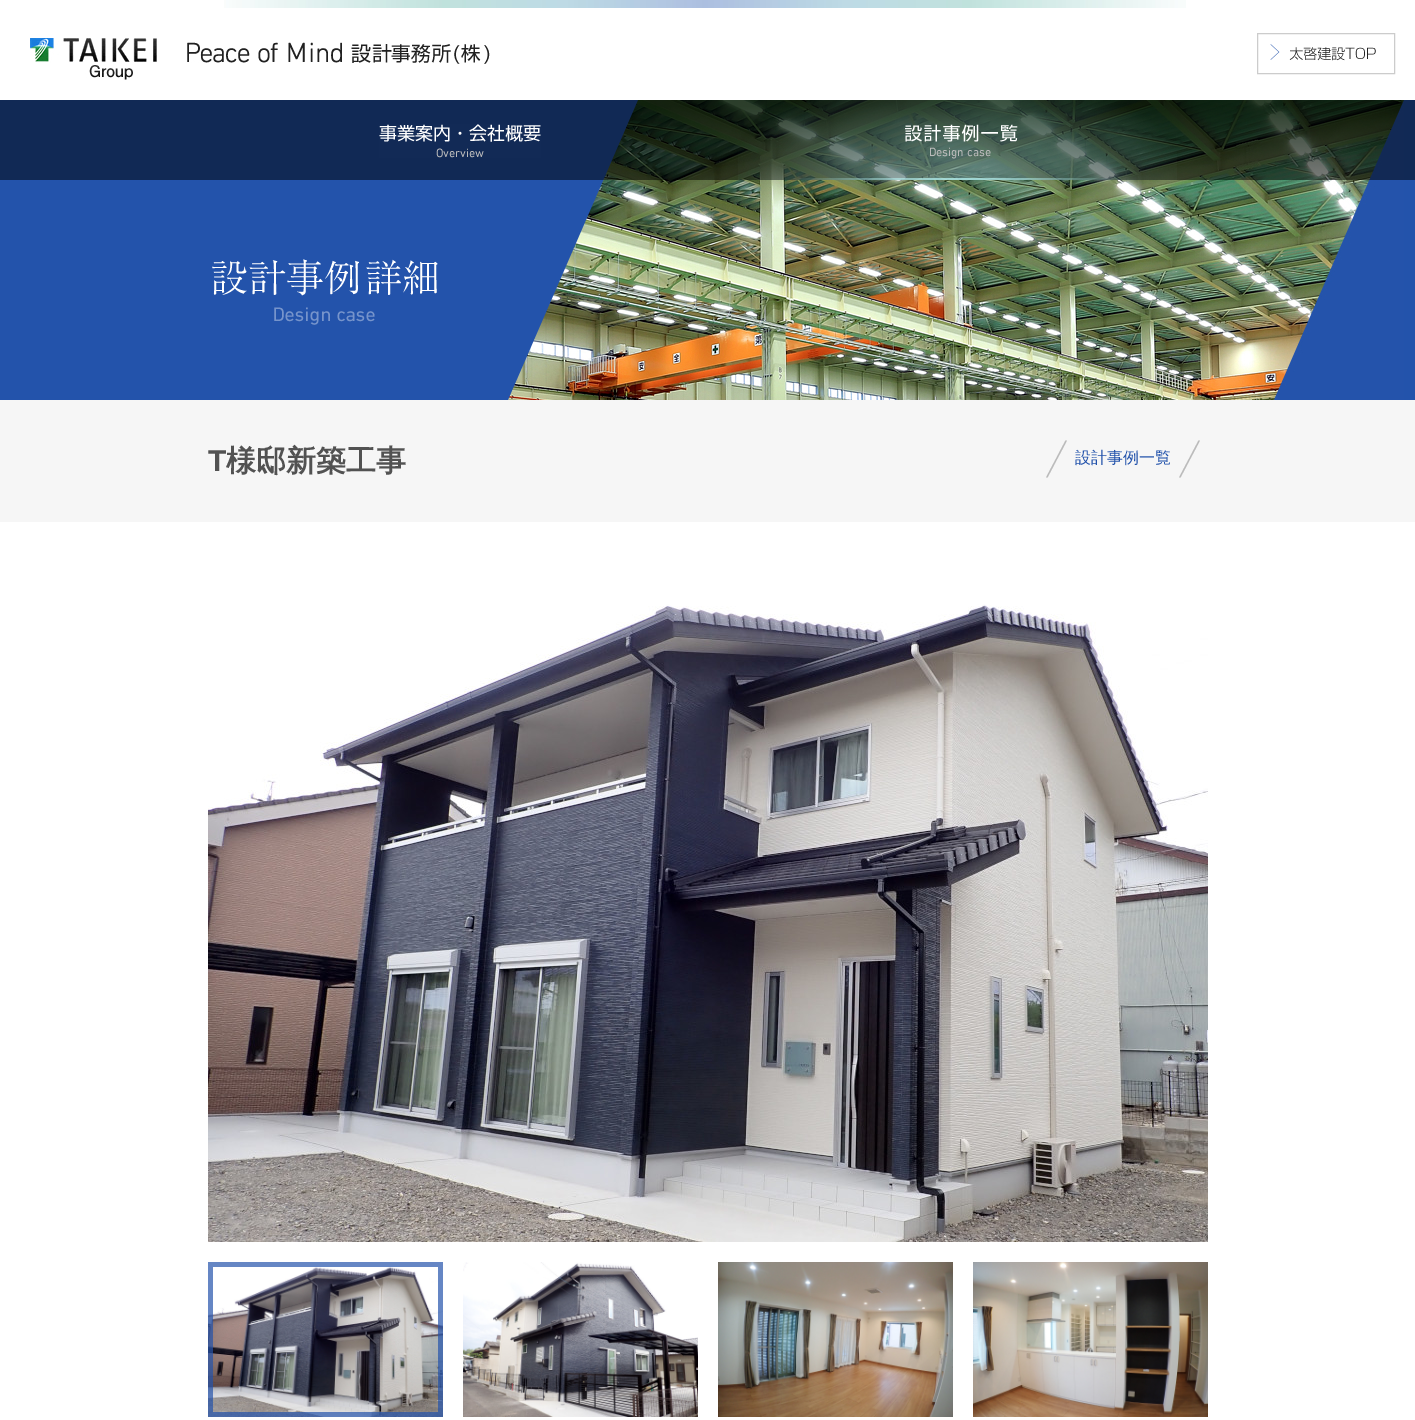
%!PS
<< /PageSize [1415 1420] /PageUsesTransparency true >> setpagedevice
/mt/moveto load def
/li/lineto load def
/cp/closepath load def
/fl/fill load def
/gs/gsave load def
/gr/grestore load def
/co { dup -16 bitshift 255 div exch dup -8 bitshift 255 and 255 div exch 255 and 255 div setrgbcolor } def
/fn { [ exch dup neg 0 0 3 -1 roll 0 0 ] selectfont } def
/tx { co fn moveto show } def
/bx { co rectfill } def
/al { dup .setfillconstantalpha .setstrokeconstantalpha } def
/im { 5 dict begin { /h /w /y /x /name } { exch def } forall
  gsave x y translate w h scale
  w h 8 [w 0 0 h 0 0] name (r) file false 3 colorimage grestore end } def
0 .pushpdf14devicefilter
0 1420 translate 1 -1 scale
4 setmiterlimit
0 0 1415 1420 16#FFFFFF bx
0 100 1415 300 16#2353AB bx
(media/1.raw) 508 100 896 300 im
(media/2.raw) 224 0 962 8 im
(media/3.raw) 30 38 127 42 im
(media/4.raw) 187 42 303 22 im
16#CCCCCC co
1257.5 33.5 137 40 rectstroke
(media/5.raw) 1270 44 10 16 im
(media/6.raw) 1289 47 87 14 im
(media/10.raw) 508 100 130 300 im
0.5 al
0 100 1415 80 16#000000 bx
1 al
(media/7.raw) 379 124 162 34 im
(media/8.raw) 738 100 439 80 im
(media/9.raw) 905 124 113 35 im
(media/11.raw) 212 259 226 66 im
0 400 1415 122 16#F6F6F6 bx
16#BBBBBB co
1067 440.5 mt 1047.5 477.5 li 1046 477.5 li 1065.5 440.5 li cp fl
1200 440.5 mt 1180.5 477.5 li 1179 477.5 li 1198.5 440.5 li cp fl
(media/12.raw) 208 604 1000 638 im
(media/14.raw) 208 1267 235 150 im
(media/13.raw) 208 1262 235 155 im
(media/15.raw) 463 1262 235 155 im
(media/16.raw) 718 1262 235 155 im
(media/17.raw) 973 1262 235 155 im
gs
208 400 1000 122 rectclip
(T) 208 471 /LiberationSans-Bold 30 16#525252 tx
gr
(様邸新築工事) 226 471 /WenQuanYiZenHei-Bold 30 16#525252 tx
(設計事例一覧) 1075 463 /WenQuanYiZenHei-Medium 16 16#2252AB tx
.poppdf14devicefilter showpage
